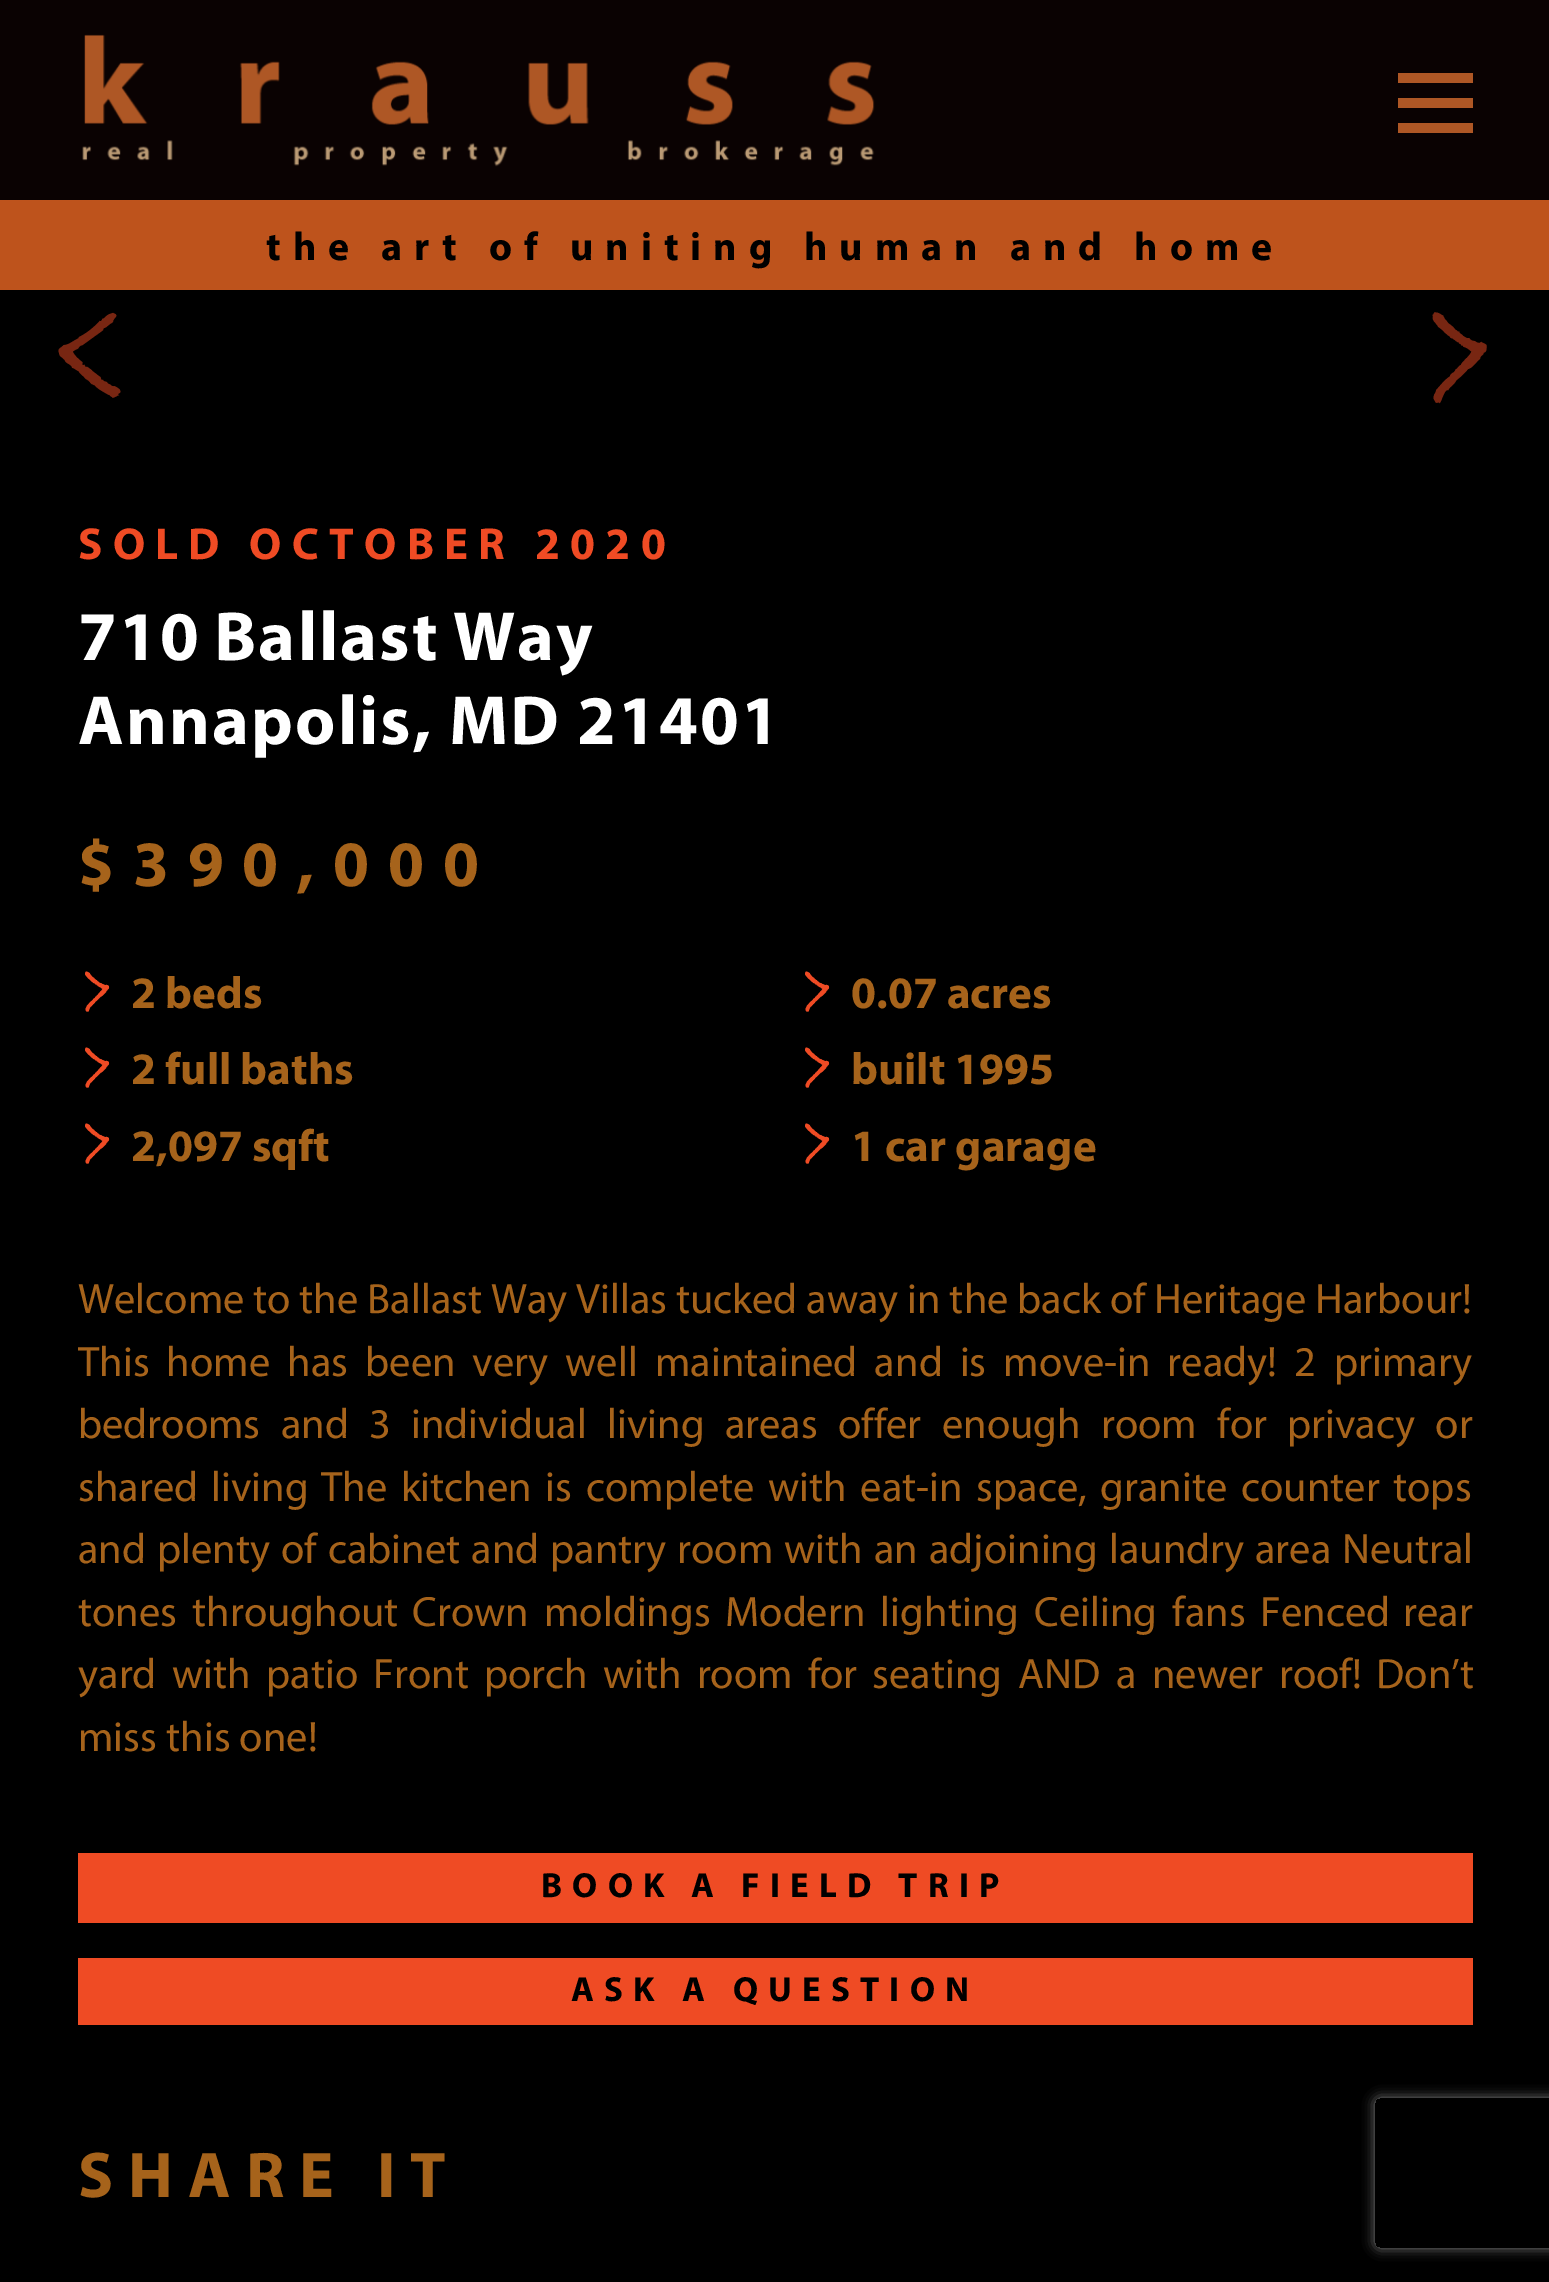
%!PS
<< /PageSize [1549 2282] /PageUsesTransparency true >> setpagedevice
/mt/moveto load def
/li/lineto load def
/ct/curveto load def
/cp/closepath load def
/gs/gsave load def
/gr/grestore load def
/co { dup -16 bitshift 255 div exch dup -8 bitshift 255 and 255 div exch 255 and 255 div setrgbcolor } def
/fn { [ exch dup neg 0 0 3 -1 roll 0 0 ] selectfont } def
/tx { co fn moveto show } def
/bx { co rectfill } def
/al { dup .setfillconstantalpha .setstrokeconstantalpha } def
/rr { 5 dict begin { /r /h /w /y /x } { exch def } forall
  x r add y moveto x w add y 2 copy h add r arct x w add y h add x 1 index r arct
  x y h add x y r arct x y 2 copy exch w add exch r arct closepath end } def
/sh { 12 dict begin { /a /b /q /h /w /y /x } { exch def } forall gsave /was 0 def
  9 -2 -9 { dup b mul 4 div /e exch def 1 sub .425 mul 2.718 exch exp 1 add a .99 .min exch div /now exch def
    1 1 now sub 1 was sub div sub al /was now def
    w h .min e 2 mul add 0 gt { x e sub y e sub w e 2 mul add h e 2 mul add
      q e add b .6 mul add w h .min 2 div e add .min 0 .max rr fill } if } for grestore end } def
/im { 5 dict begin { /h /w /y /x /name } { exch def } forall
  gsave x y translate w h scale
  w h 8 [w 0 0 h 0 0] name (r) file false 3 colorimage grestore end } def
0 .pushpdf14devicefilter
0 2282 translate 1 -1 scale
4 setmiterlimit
0 0 1549 2282 16#000000 bx
0 0 1549 200 16#0A0202 bx
(media/1.raw) 82 34 793 133 im
1398 98 75 10 16#AE5725 bx
1398 73 75 10 16#AE5725 bx
1398 123 75 10 16#AE5725 bx
0 200 1549 90 16#BE531C bx
78 1853 1395 70 16#EF4B24 bx
78 1958 1395 67 16#EF4B24 bx
gs
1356 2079 mt 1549 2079 li 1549 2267 li 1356 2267 li cp 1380 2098 mt 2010 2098 li 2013 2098 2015 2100 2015 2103 ct 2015 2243 li 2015 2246 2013 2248 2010 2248 ct 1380 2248 li 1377 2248 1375 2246 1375 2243 ct 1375 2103 li 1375 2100 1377 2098 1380 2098 ct cp eoclip newpath
16#808080 co
1375 2098 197 150 5 6 1 sh
gr
/Myriad-Bold 40 fn
16#000000 co
266 260 mt 12 0 (the art) ashow
489 260 mt 12 0 (of uniting human and home) ashow
(<) 54 390 /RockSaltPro-Regular 90 16#782612 tx
(>) 1428 390 /RockSaltPro-Regular 90 16#782612 tx
/Myriad-Bold 45 fn
16#EF4B24 co
78 559 mt 10.3 0 (SOLD OCTOBER 2020) ashow
/Myriad-Bold 70 fn
16#FFFFFF co
78 660 mt -3 0 32 2.1 0 (710 Ballast Way) awidthshow
78 744 mt -.5 0 32 2.1 0 (Annapolis, MD 21401) awidthshow
/Myriad-Bold 65 fn
16#A6631B co
78 886 mt 18.75 0 ($390,000) ashow
(>) 83 1006 /RockSaltPro-Regular 40 16#EF4B24 tx
(2 beds) 131 1008 /Myriad-Bold 45 16#A6631B tx
(>) 803 1006 /RockSaltPro-Regular 40 16#EF4B24 tx
(0.07 acres) 851 1008 /Myriad-Bold 45 16#A6631B tx
(>) 83 1082 /RockSaltPro-Regular 40 16#EF4B24 tx
(2 full baths) 131 1084 /Myriad-Bold 45 16#A6631B tx
(>) 803 1082 /RockSaltPro-Regular 40 16#EF4B24 tx
(built 1995) 851 1084 /Myriad-Bold 45 16#A6631B tx
(>) 83 1158 /RockSaltPro-Regular 40 16#EF4B24 tx
(2,097 sqft) 131 1161 /Myriad-Bold 45 16#A6631B tx
(>) 803 1158 /RockSaltPro-Regular 40 16#EF4B24 tx
(1 car garage) 851 1161 /Myriad-Bold 45 16#A6631B tx
/Myriad-Regular 42.5 fn
78 1313 mt -.25 0 32 (Welcome to the Ballast Way Villas tucked away in the back of Heritage Harbour!) widthshow
78 1376 mt 8 0 32 (This home has been very well maintained and is move-in ready!) widthshow
1294 1376 mt 9 0 32 (2 primary) widthshow
78 1438 mt 11.25 0 32 (bedrooms and 3 individual living areas offer enough room for privacy or) widthshow
78 1501 mt 4 0 32 (shared living) widthshow
321 1501 mt 4.5 0 32 (The kitchen is complete with eat-in space, granite counter tops) widthshow
78 1563 mt 1.9 0 32 (and plenty of cabinet and pantry room with an adjoining laundry area) widthshow
(Neutral) 1342 1563 /Myriad-Regular 42.5 16#A6631B tx
78 1626 mt 6 0 32 (tones throughout) widthshow
412 1626 mt 6 0 32 (Crown moldings) widthshow
725 1626 mt 6 0 32 (Modern lighting) widthshow
1034 1626 mt 6 0 32 (Ceiling fans) widthshow
1260 1626 mt 4 0 32 (Fenced rear) widthshow
78 1688 mt 6.5 0 32 (yard with patio) widthshow
373 1688 mt 6 0 32 (Front porch with room for seating) widthshow
1018 1688 mt 6.5 0 32 (AND a newer roof!) widthshow
(Don’t) 1376 1688 /Myriad-Regular 42.5 16#A6631B tx
(miss this one!) 78 1751 /Myriad-Regular 42.5 16#A6631B tx
/Myriad-Bold 35 fn
16#000000 co
541 1897 mt -.5 0 32 10.2 0 (BOOK A FIELD TRIP) awidthshow
571 2001 mt 10.2 0 (ASK A QUESTION) ashow
/Myriad-Bold 65 fn
16#A6631B co
78 2197 mt 15 0 (SHARE IT) ashow
.poppdf14devicefilter showpage
